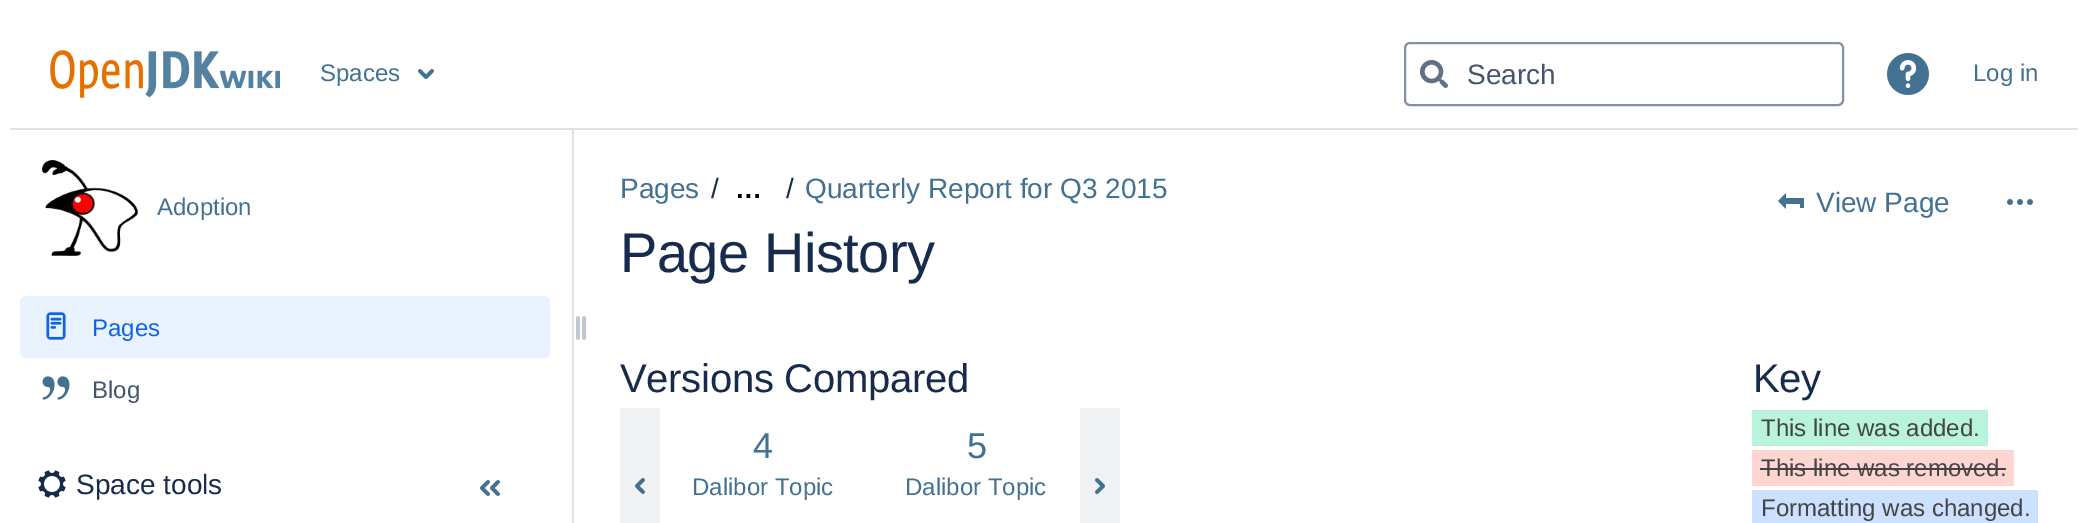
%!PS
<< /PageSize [2087 523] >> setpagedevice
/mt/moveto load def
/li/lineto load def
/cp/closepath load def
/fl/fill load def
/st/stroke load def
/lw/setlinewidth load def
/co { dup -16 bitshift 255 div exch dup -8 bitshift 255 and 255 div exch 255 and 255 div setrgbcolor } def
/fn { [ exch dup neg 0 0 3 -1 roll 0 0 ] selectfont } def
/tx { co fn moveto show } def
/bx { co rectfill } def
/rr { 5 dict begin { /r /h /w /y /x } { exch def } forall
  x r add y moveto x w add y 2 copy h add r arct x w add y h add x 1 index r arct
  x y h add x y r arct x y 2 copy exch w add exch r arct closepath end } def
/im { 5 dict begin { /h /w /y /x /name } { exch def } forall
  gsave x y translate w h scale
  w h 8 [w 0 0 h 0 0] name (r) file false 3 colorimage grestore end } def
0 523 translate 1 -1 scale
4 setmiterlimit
0 0 2087 523 16#FFFFFF bx
10 128 2068 2 16#DDE0E5 bx
(media/1.raw) 50 50 230 48 im
(media/2.raw) 418 69 16 10 im
16#8590A2 co
2 lw
1405 43 438 62 5 rr st
(media/3.raw) 1420 60 28 28 im
(media/4.raw) 1887 53 42 42 im
(media/5.raw) 42 160 96 96 im
16#E9F2FF co
20 296 530 62 6 rr fl
(media/6.raw) 46 312 20 28 im
(media/7.raw) 42 376 28 24 im
(media/8.raw) 576 316 10 24 im
572 130 2 393 16#DDE0E5 bx
(media/9.raw) 38 470 28 28 im
(media/10.raw) 480 480 20 16 im
16#427191 co
1786 193 mt 1778 201 li 1786 209 li 1786 204 li 1800 204 li 1800 208 li 1804 208 li 1804 198 li 1786 198 li cp fl
(media/11.raw) 2007 199 26 6 im
1752 410 236 36 16#BAF3DB bx
1752 450 262 36 16#FFD5D2 bx
1760 468 246 2 16#444444 bx
1752 490 286 33 16#CCE0FF bx
620 408 40 115 16#F0F2F4 bx
(media/12.raw) 635 478 10 16 im
1080 408 40 115 16#F0F2F4 bx
(media/13.raw) 1095 478 10 16 im
(Spaces) 320 81 /LiberationSans-Regular 24 16#427191 tx
(Search) 1467 84 /LiberationSans-Regular 28 16#44546F tx
(Log in) 1973 81 /LiberationSans-Regular 24 16#427191 tx
(Adoption) 157 215 /LiberationSans-Regular 24 16#427191 tx
(Pages) 92 336 /LiberationSans-Regular 24 16#0C66E4 tx
(Blog) 92 398 /LiberationSans-Regular 24 16#44546F tx
(Space tools) 76 494 /LiberationSans-Regular 28 16#172B4D tx
(Pages) 620 198 /LiberationSans-Regular 28 16#427191 tx
(/) 711 198 /LiberationSans-Regular 28 16#172B4D tx
(…) 735 198 /LiberationSans-Bold 27 16#000000 tx
(/) 786 198 /LiberationSans-Regular 28 16#172B4D tx
(Quarterly Report for Q3 2015) 805 198 /LiberationSans-Regular 28 16#427191 tx
/LiberationSans-Regular 56 fn
16#172B4D co
620 272 mt -.5 0 (Page History) ashow
(View Page) 1816 212 /LiberationSans-Regular 28 16#427191 tx
/LiberationSans-Regular 40 fn
16#172B4D co
620 392 mt -.3 0 (Versions Compared) ashow
1753 392 mt -.3 0 (Key) ashow
(This line was added.) 1761 436 /LiberationSans-Regular 24 16#444444 tx
(This line was removed.) 1761 476 /LiberationSans-Regular 24 16#444444 tx
(Formatting was changed.) 1761 516 /LiberationSans-Regular 24 16#444444 tx
(4) 753 458 /LiberationSans-Regular 36 16#427191 tx
(Dalibor Topic) 692 495 /LiberationSans-Regular 24 16#427191 tx
(5) 967 458 /LiberationSans-Regular 36 16#427191 tx
(Dalibor Topic) 905 495 /LiberationSans-Regular 24 16#427191 tx
showpage
